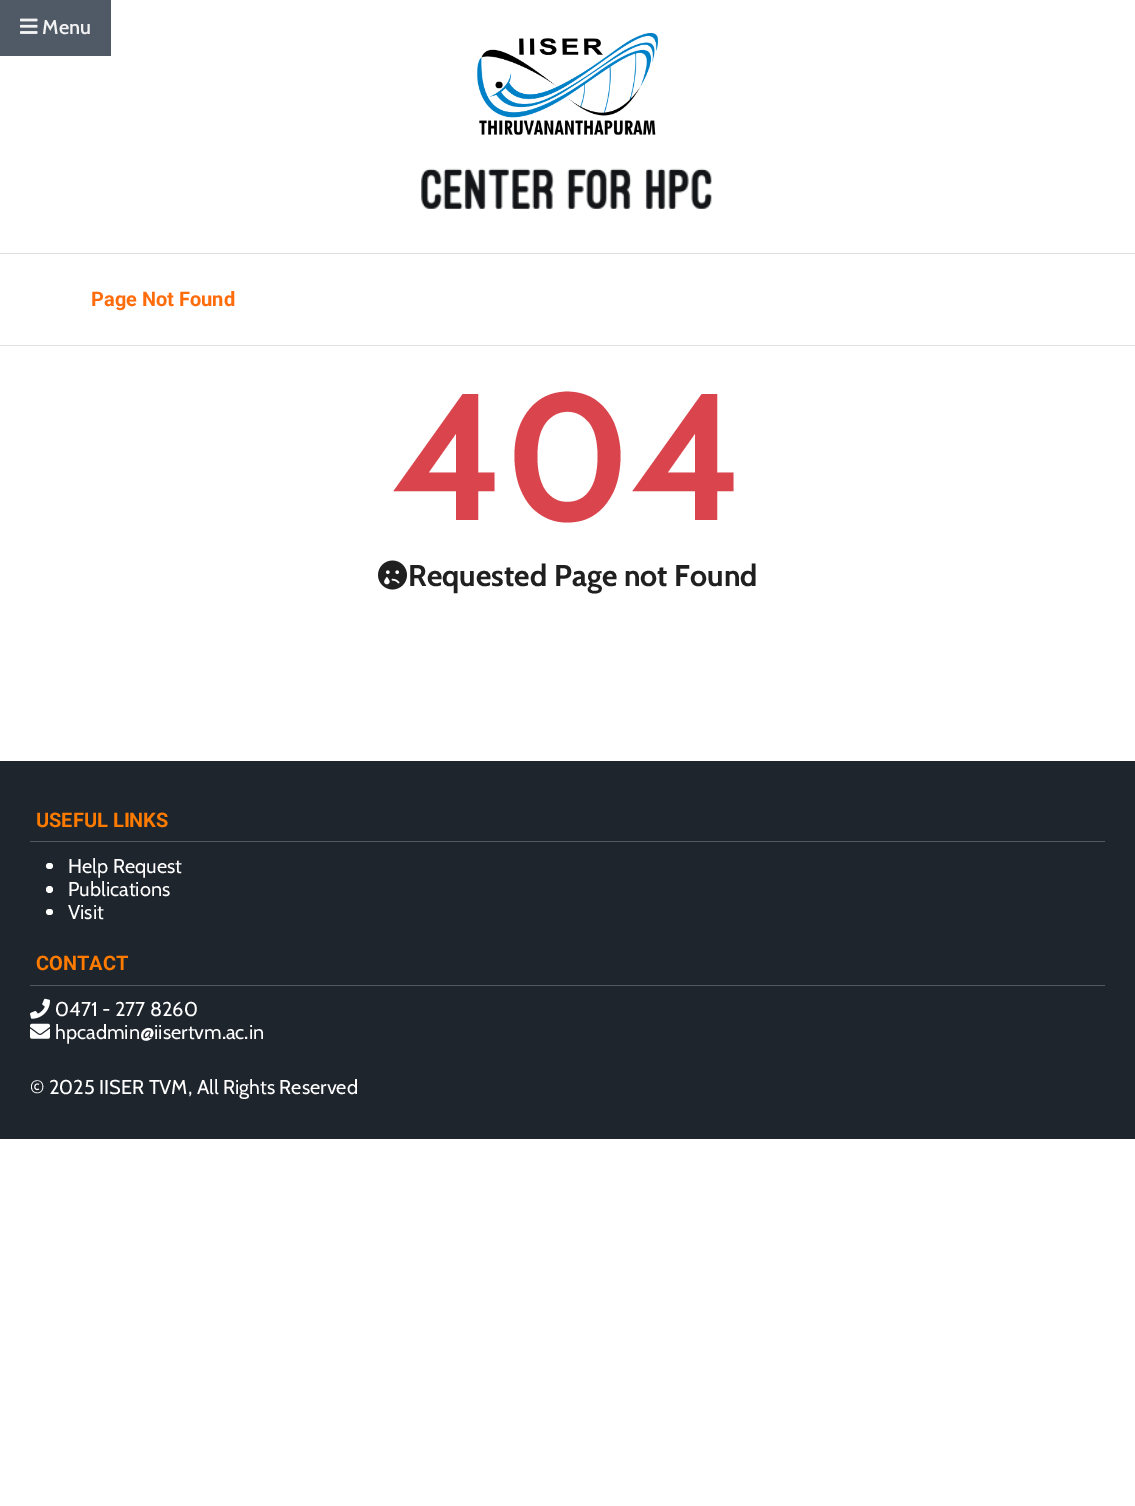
%!PS
<< /PageSize [1135 1506] >> setpagedevice
/fl/fill load def
/co { dup -16 bitshift 255 div exch dup -8 bitshift 255 and 255 div exch 255 and 255 div setrgbcolor } def
/fn { [ exch dup neg 0 0 3 -1 roll 0 0 ] selectfont } def
/tx { co fn moveto show } def
/bx { co rectfill } def
/ci { newpath 0 360 arc closepath } def
/rr { 5 dict begin { /r /h /w /y /x } { exch def } forall
  x r add y moveto x w add y 2 copy h add r arct x w add y h add x 1 index r arct
  x y h add x y r arct x y 2 copy exch w add exch r arct closepath end } def
/im { 5 dict begin { /h /w /y /x /name } { exch def } forall
  gsave x y translate w h scale
  w h 8 [w 0 0 h 0 0] name (r) file false 3 colorimage grestore end } def
0 1506 translate 1 -1 scale
4 setmiterlimit
0 0 1135 1506 16#FFFFFF bx
0 0 111 56 16#505A67 bx
(media/1.raw) 20 18 18 16 im
(media/2.raw) 477 33 181 102 im
(media/3.raw) 421 168 291 42 im
0 253 1135 1 16#E0E0E0 bx
0 345 1135 1 16#E0E0E0 bx
(media/4.raw) 378 560 29 30 im
0 761 1135 378 16#1F252D bx
30 841 1075 1 16#545960 bx
16#FFFFFF co
46 863 7 6 3 rr fl
49.5 889.5 3.5 ci fl
46 909 7 6 3 rr fl
30 985 1075 1 16#545960 bx
(media/5.raw) 30 998 20 21 im
(media/6.raw) 30 1023 20 16 im
(Menu) 42 34 /Cabin-SemiBold 20 16#F2F2F2 tx
(Page Not Found) 91 306 /Roboto-Bold 20 16#FF6C0C tx
(404) 392 520 /Cabin-Bold 180 16#DA444D tx
(Requested Page not Found) 408 586 /Cabin-Bold 30 16#202020 tx
(USEFUL LINKS) 36 827 /Roboto-Bold 20 16#FF7B00 tx
(Help Request) 68 873 /Cabin-Regular 20 16#FFFFFF tx
(Publications) 68 896 /Cabin-Regular 20 16#FFFFFF tx
(Visit) 68 919 /Cabin-Regular 20 16#FFFFFF tx
(CONTACT) 36 970 /Roboto-Bold 20 16#FF7B00 tx
(0471 - 277 8260) 55 1016 /Cabin-Regular 20 16#FFFFFF tx
(hpcadmin@iisertvm.ac.in) 55 1039 /Cabin-Regular 20 16#FFFFFF tx
(© 2025 IISER TVM, All Rights Reserved) 30 1094 /Cabin-Regular 20 16#FFFFFF tx
showpage
